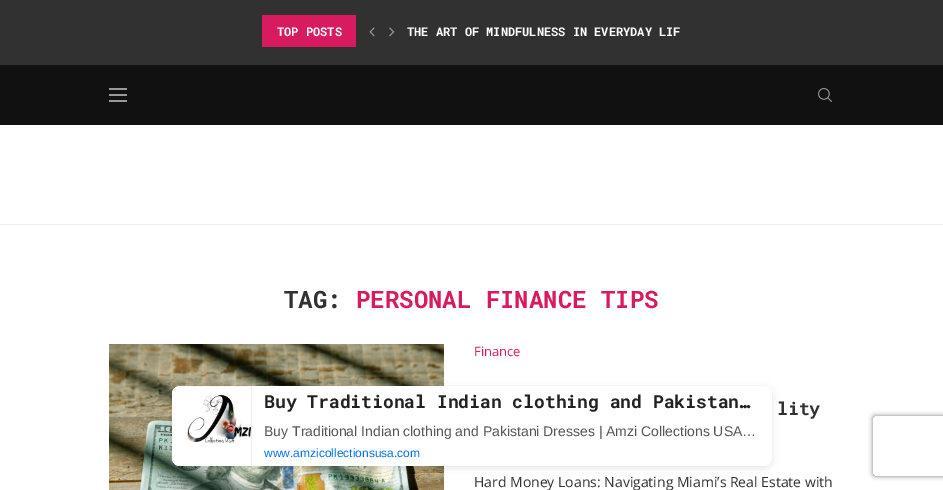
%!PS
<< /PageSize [943 490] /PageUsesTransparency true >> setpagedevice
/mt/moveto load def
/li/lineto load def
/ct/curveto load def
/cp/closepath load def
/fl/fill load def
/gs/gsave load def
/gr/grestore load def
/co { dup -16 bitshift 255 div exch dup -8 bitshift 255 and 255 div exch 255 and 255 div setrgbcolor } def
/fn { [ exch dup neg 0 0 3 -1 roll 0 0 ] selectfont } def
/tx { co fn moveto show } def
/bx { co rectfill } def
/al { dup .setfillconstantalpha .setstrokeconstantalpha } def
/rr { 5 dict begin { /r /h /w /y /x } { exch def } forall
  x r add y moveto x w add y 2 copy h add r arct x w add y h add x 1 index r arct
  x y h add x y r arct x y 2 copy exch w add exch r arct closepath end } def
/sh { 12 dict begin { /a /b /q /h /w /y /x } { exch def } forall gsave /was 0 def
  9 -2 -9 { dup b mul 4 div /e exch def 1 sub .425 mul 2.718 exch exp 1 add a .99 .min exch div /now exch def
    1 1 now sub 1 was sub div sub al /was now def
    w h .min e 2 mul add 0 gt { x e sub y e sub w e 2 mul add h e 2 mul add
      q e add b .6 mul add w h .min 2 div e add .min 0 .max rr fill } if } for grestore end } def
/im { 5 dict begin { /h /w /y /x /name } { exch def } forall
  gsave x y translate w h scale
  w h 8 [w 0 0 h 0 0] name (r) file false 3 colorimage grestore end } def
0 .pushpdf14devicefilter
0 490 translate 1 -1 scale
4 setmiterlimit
0 0 943 490 16#FFFFFF bx
0 0 943 65 16#313131 bx
262 15 94 32 16#D81B60 bx
(media/1.raw) 369 27 6 10 im
(media/2.raw) 389 27 6 10 im
0 65 943 60 16#111111 bx
109 88 18 2 16#999999 bx
109 94 18 2 16#999999 bx
109 100 18 2 16#999999 bx
(media/3.raw) 818 88 14 14 im
0 224 943 1 16#EEEEEE bx
(media/4.raw) 109 344 335 146 im
16#000000 co
172 388 600 80 8 4 .1 sh
251 386 1 80 16#EEEEEE bx
16#F9F9F9 co
180 386 mt 251 386 li 251 466 li 180 466 li 175.5 466 172 462.5 172 458 ct 172 394 li 172 389.5 175.5 386 180 386 ct cp fl
(media/5.raw) 172 387 79 79 im
16#FFFFFF co
252 386 mt 764 386 li 768.5 386 772 389.5 772 394 ct 772 458 li 772 462.5 768.5 466 764 466 ct 252 466 li cp fl
gs
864 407 mt 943 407 li 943 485 li 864 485 li cp 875 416 mt 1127 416 li 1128 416 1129 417 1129 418 ct 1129 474 li 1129 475 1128 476 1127 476 ct 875 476 li 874 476 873 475 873 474 ct 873 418 li 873 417 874 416 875 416 ct cp eoclip newpath
16#808080 co
873 416 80 60 2 2.5 1 sh
gr
(TOP POSTS) 277 36 /RobotoMono-Bold 12 16#FFFFFF tx
(THE ART OF MINDFULNESS IN EVERYDAY LIF) 407 36 /RobotoMono-Bold 12 16#FFFFFF tx
(TAG:) 284 308 /RobotoMono-Bold 24 16#313131 tx
(PERSONAL FINANCE TIPS) 356 308 /RobotoMono-Bold 24 16#D81B60 tx
(Finance) 474 356 /OpenSans-Regular 13 16#D81B60 tx
(lity) 777 415 /RobotoMono-Bold 18 16#313131 tx
(Hard Money Loans: Navigating Miami’s Real Estate with) 474 487 /OpenSans-Regular 14 16#313131 tx
(Buy Traditional Indian clothing and Pakistan…) 264 408 /RobotoMono-Bold 18 16#222222 tx
(Buy Traditional Indian clothing and Pakistani Dresses | Amzi Collections USA…) 264 436 /LiberationSans-Regular 14 16#555555 tx
(www.amzicollectionsusa.com) 264 457 /LiberationSans-Regular 12 16#0073E6 tx
.poppdf14devicefilter showpage
